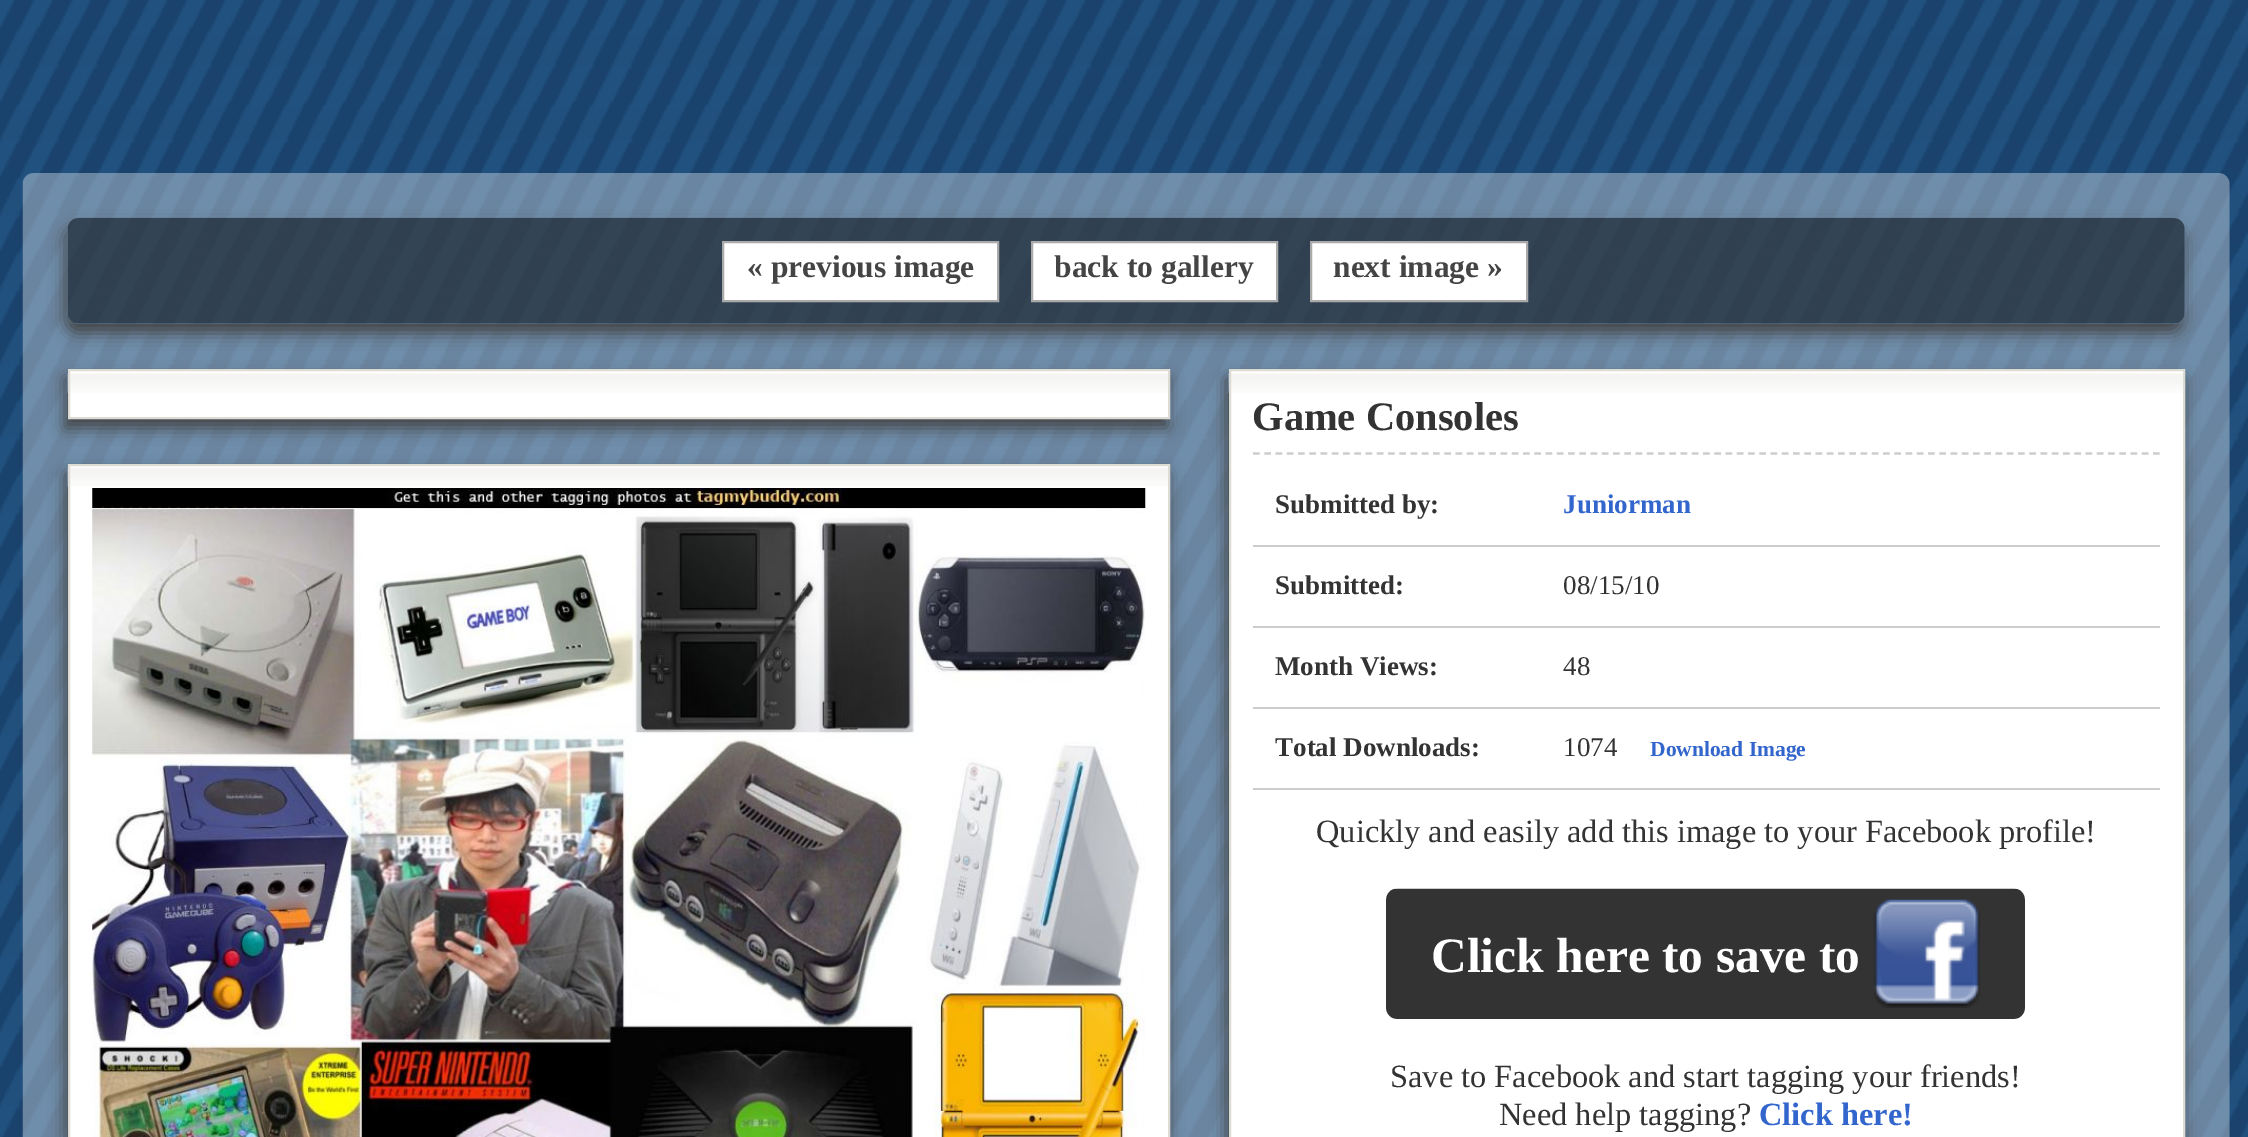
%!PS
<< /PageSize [2248 1137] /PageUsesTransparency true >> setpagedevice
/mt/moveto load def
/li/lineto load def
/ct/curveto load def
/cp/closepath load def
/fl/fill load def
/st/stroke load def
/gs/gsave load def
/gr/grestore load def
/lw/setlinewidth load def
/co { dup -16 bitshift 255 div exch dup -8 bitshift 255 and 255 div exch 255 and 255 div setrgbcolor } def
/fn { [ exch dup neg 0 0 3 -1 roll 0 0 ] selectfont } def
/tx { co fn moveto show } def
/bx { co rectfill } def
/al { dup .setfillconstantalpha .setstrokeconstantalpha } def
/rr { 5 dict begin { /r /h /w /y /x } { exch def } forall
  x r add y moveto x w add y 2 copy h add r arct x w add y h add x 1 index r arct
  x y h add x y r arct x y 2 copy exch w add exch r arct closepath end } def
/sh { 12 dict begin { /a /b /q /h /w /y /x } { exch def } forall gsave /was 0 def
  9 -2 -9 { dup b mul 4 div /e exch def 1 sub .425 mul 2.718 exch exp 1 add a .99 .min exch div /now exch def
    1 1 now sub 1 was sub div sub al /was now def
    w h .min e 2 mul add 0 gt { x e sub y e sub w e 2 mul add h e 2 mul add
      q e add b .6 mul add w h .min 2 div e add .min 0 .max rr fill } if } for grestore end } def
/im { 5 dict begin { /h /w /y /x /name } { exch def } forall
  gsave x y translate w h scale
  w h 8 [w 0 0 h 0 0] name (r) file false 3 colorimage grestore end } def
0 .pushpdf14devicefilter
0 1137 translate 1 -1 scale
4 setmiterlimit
0 0 2248 1137 16#FFFFFF bx
(media/1.raw) 0 0 2248 1137 im
(media/2.raw) 22 173 2208 964 im
gs
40 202 mt 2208 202 li 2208 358 li 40 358 li cp 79 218 mt 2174 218 li 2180 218 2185 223 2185 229 ct 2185 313 li 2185 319 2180 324 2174 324 ct 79 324 li 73 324 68 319 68 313 ct 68 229 li 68 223 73 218 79 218 ct cp eoclip newpath
16#444444 co
65 227 2118 106 11 8 1 sh
gr
(media/3.raw) 67 218 2118 106 im
723 242 mt 998 242 li 998 301 li 723 301 li cp gs fl gr
16#AAAAAA co
2 lw
st
16#FFFFFF co
1032 242 mt 1277 242 li 1277 301 li 1032 301 li cp gs fl gr
16#AAAAAA co
st
16#FFFFFF co
1311 242 mt 1527 242 li 1527 301 li 1311 301 li cp gs fl gr
16#AAAAAA co
st
16#444444 co
65 378 1103 50 0 8 1 sh
70 371 1098 46 16#FFFFFF bx
(media/4.raw) 67 373 1101 20 im
16#DDDCD4 co
69 370 1100 48 rectstroke
16#444444 co
65 473 1103 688 0 8 1 sh
70 466 1098 671 16#FFFFFF bx
(media/5.raw) 67 467 1101 20 im
16#DDDCD4 co
69 465 1100 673 rectstroke
(media/6.raw) 92 488 1054 649 im
16#444444 co
1226 378 957 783 0 8 1 sh
1231 371 952 766 16#FFFFFF bx
(media/7.raw) 1228 373 955 20 im
16#DDDCD4 co
1230 370 954 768 rectstroke
16#CCCCCC co
2.2 lw
[6.75 4.5] 0 setdash
1253 453.5 mt 2160 453.5 li st
1253 545 907 2 16#CCCCCC bx
1253 626 907 2 16#CCCCCC bx
1253 707 907 2 16#CCCCCC bx
1253 788 907 2 16#CCCCCC bx
(media/8.raw) 1386 888 639 131 im
(media/9.raw) 1873 899 107 109 im
(« previous image) 747 277 /LiberationSerif-Bold 31.5 16#444444 tx
(back to gallery) 1054 277 /LiberationSerif-Bold 31.5 16#444444 tx
(next image ») 1333 277 /LiberationSerif-Bold 31.5 16#444444 tx
(Game Consoles) 1252 430 /LiberationSerif-Bold 40.5 16#333333 tx
(Submitted by:) 1275 513 /LiberationSerif-Bold 27 16#333333 tx
(Juniorman) 1563 513 /LiberationSerif-Bold 27 16#3366CC tx
(Submitted:) 1275 594 /LiberationSerif-Bold 27 16#333333 tx
(08/15/10) 1563 594 /LiberationSerif-Regular 27 16#333333 tx
(Month Views:) 1275 675 /LiberationSerif-Bold 27 16#333333 tx
(48) 1563 675 /LiberationSerif-Regular 27 16#333333 tx
(Total Downloads:) 1275 756 /LiberationSerif-Bold 27 16#333333 tx
(1074) 1563 756 /LiberationSerif-Regular 27 16#333333 tx
(Download Image) 1650 756 /LiberationSerif-Bold 21.5 16#3366CC tx
(Quickly and easily add this image to your Facebook profile!) 1316 842 /LiberationSerif-Regular 32.4 16#333333 tx
(Click here to save to) 1431 972 /LiberationSerif-Bold 49.5 16#FFFFFF tx
(Save to Facebook and start tagging your friends!) 1390 1087 /LiberationSerif-Regular 32.4 16#333333 tx
(Need help tagging?) 1499 1125 /LiberationSerif-Regular 32.4 16#333333 tx
(Click here!) 1759 1125 /LiberationSerif-Bold 32.4 16#3366CC tx
.poppdf14devicefilter showpage
